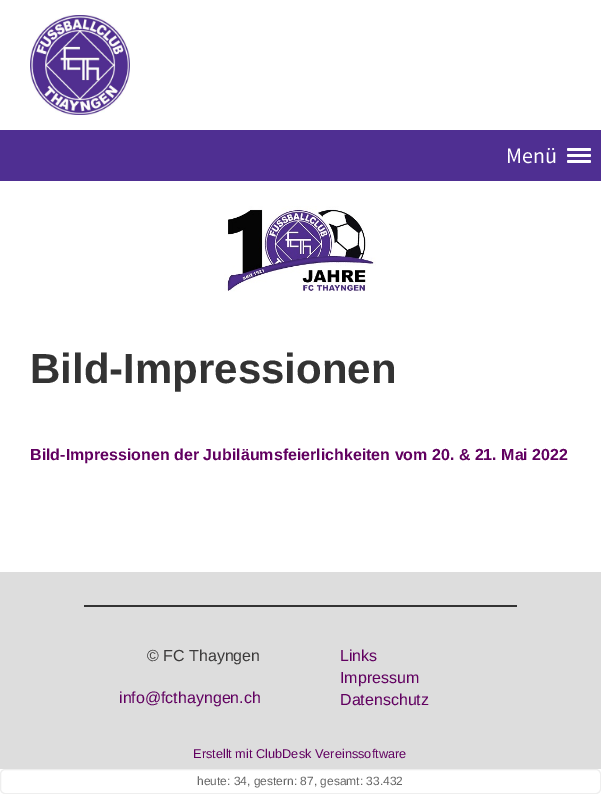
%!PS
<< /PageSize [601 794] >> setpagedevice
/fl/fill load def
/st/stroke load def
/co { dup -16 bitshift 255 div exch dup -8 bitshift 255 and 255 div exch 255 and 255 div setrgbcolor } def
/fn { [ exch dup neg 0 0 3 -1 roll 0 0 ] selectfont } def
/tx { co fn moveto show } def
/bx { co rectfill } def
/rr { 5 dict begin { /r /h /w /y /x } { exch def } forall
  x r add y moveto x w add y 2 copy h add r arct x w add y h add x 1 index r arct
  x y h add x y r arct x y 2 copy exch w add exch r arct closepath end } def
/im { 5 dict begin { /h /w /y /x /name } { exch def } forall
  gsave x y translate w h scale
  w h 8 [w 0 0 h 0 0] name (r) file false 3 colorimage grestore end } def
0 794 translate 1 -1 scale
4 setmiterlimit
0 0 601 794 16#FFFFFF bx
(media/1.raw) 30 15 100 100 im
0 130 601 51 16#4F2F92 bx
16#FFFFFF co
567 148 24 3 1.5 rr fl
567 154 24 3 1.5 rr fl
567 160 24 3 1.5 rr fl
(media/2.raw) 224 206 152 86 im
0 572 601 197 16#DDDDDD bx
84 605 433 2 16#333333 bx
16#EEEEEE co
.5 769.5 600 24 4.5 rr st
(Menü) 506 163 /SourceSansPro-Regular 22 16#FFFFFF tx
(Bild-Impressionen) 30 383 /LiberationSans-Bold 42 16#333333 tx
(Bild-Impressionen der Jubiläumsfeierlichkeiten vom 20. & 21. Mai 2022) 30 460 /LiberationSans-Bold 16 16#610060 tx
(© FC Thayngen) 147 661 /LiberationSans-Regular 16 16#3B3A3A tx
(info@fcthayngen.ch) 119 703 /LiberationSans-Regular 16 16#610060 tx
(Links) 340 661 /LiberationSans-Regular 16 16#610060 tx
(Impressum) 340 683 /LiberationSans-Regular 16 16#610060 tx
(Datenschutz) 340 705 /LiberationSans-Regular 16 16#610060 tx
(Erstellt mit ClubDesk Vereinssoftware) 193 758 /LiberationSans-Regular 12.75 16#610060 tx
(heute: 34, gestern: 87, gesamt: 33.432) 197 785 /LiberationSans-Regular 12 16#666666 tx
showpage
